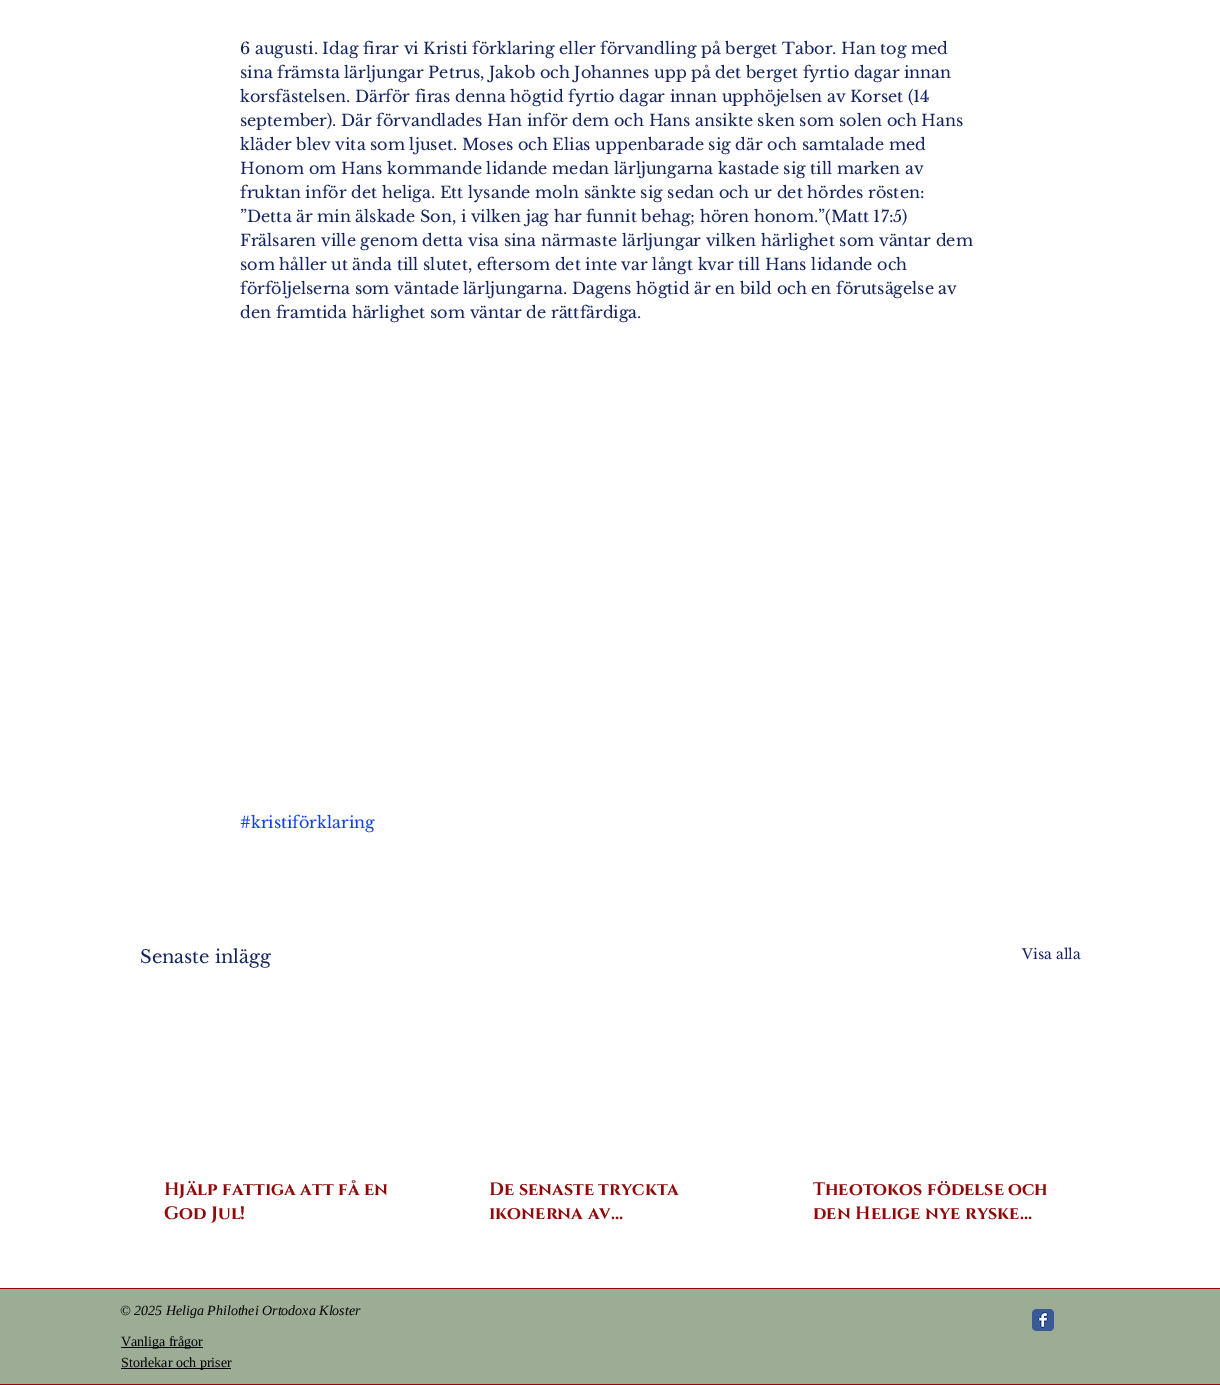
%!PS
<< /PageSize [1220 1385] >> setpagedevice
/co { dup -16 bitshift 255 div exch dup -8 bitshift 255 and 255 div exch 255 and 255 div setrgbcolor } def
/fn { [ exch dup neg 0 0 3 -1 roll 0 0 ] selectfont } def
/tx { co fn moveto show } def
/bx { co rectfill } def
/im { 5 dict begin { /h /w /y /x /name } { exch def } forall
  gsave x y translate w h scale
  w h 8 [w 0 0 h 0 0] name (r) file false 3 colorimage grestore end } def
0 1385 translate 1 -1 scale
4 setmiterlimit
0 0 1220 1385 16#FFFFFF bx
0 1288 1220 1 16#910808 bx
0 1384 1220 1 16#910808 bx
0 1289 1220 95 16#9DAC94 bx
(media/1.raw) 1032 1309 22 22 im
121 1347 82 1 16#000000 bx
121 1368 110 1 16#000000 bx
(6 augusti. Idag firar vi Kristi förklaring eller förvandling på berget Tabor. Han tog med) 240 54 /LibreBaskerville-Regular 16 16#132460 tx
(sina främsta lärljungar Petrus, Jakob och Johannes upp på det berget fyrtio dagar innan) 240 78 /LibreBaskerville-Regular 16 16#132460 tx
(korsfästelsen. Därför firas denna högtid fyrtio dagar innan upphöjelsen av Korset \(14) 240 102 /LibreBaskerville-Regular 16 16#132460 tx
(september\). Där förvandlades Han inför dem och Hans ansikte sken som solen och Hans) 240 126 /LibreBaskerville-Regular 16 16#132460 tx
(kläder blev vita som ljuset. Moses och Elias uppenbarade sig där och samtalade med) 240 150 /LibreBaskerville-Regular 16 16#132460 tx
(Honom om Hans kommande lidande medan lärljungarna kastade sig till marken av) 240 174 /LibreBaskerville-Regular 16 16#132460 tx
(fruktan inför det heliga. Ett lysande moln sänkte sig sedan och ur det hördes rösten:) 240 198 /LibreBaskerville-Regular 16 16#132460 tx
(”Detta är min älskade Son, i vilken jag har funnit behag; hören honom.”\(Matt 17:5\)) 240 222 /LibreBaskerville-Regular 16 16#132460 tx
(Frälsaren ville genom detta visa sina närmaste lärljungar vilken härlighet som väntar dem) 240 246 /LibreBaskerville-Regular 16 16#132460 tx
(som håller ut ända till slutet, eftersom det inte var långt kvar till Hans lidande och) 240 270 /LibreBaskerville-Regular 16 16#132460 tx
(förföljelserna som väntade lärljungarna. Dagens högtid är en bild och en förutsägelse av) 240 294 /LibreBaskerville-Regular 16 16#132460 tx
(den framtida härlighet som väntar de rättfärdiga.) 240 318 /LibreBaskerville-Regular 16 16#132460 tx
(#kristiförklaring) 240 828 /LibreBaskerville-Regular 16 16#0E3FEB tx
(Senaste inlägg) 140 963 /LibreBaskerville-Regular 18 16#132460 tx
(Visa alla) 1022 959 /LibreBaskerville-Regular 14 16#132460 tx
(Hjälp fattiga att få en) 164 1195 /Cinzel-Bold 18 16#910808 tx
(God Jul!) 164 1219 /Cinzel-Bold 18 16#910808 tx
(De senaste tryckta) 489 1195 /Cinzel-Bold 18 16#910808 tx
(ikonerna av…) 489 1219 /Cinzel-Bold 18 16#910808 tx
(Theotokos födelse och) 813 1195 /Cinzel-Bold 18 16#910808 tx
(den Helige nye ryske…) 813 1219 /Cinzel-Bold 18 16#910808 tx
(© 2025 Heliga Philothei Ortodoxa Kloster) 120 1315 /LiberationSerif-Italic 14 16#000000 tx
(Vanliga frågor) 121 1346 /LiberationSerif-Regular 14 16#000000 tx
(Storlekar och priser) 121 1367 /LiberationSerif-Regular 14 16#000000 tx
showpage
